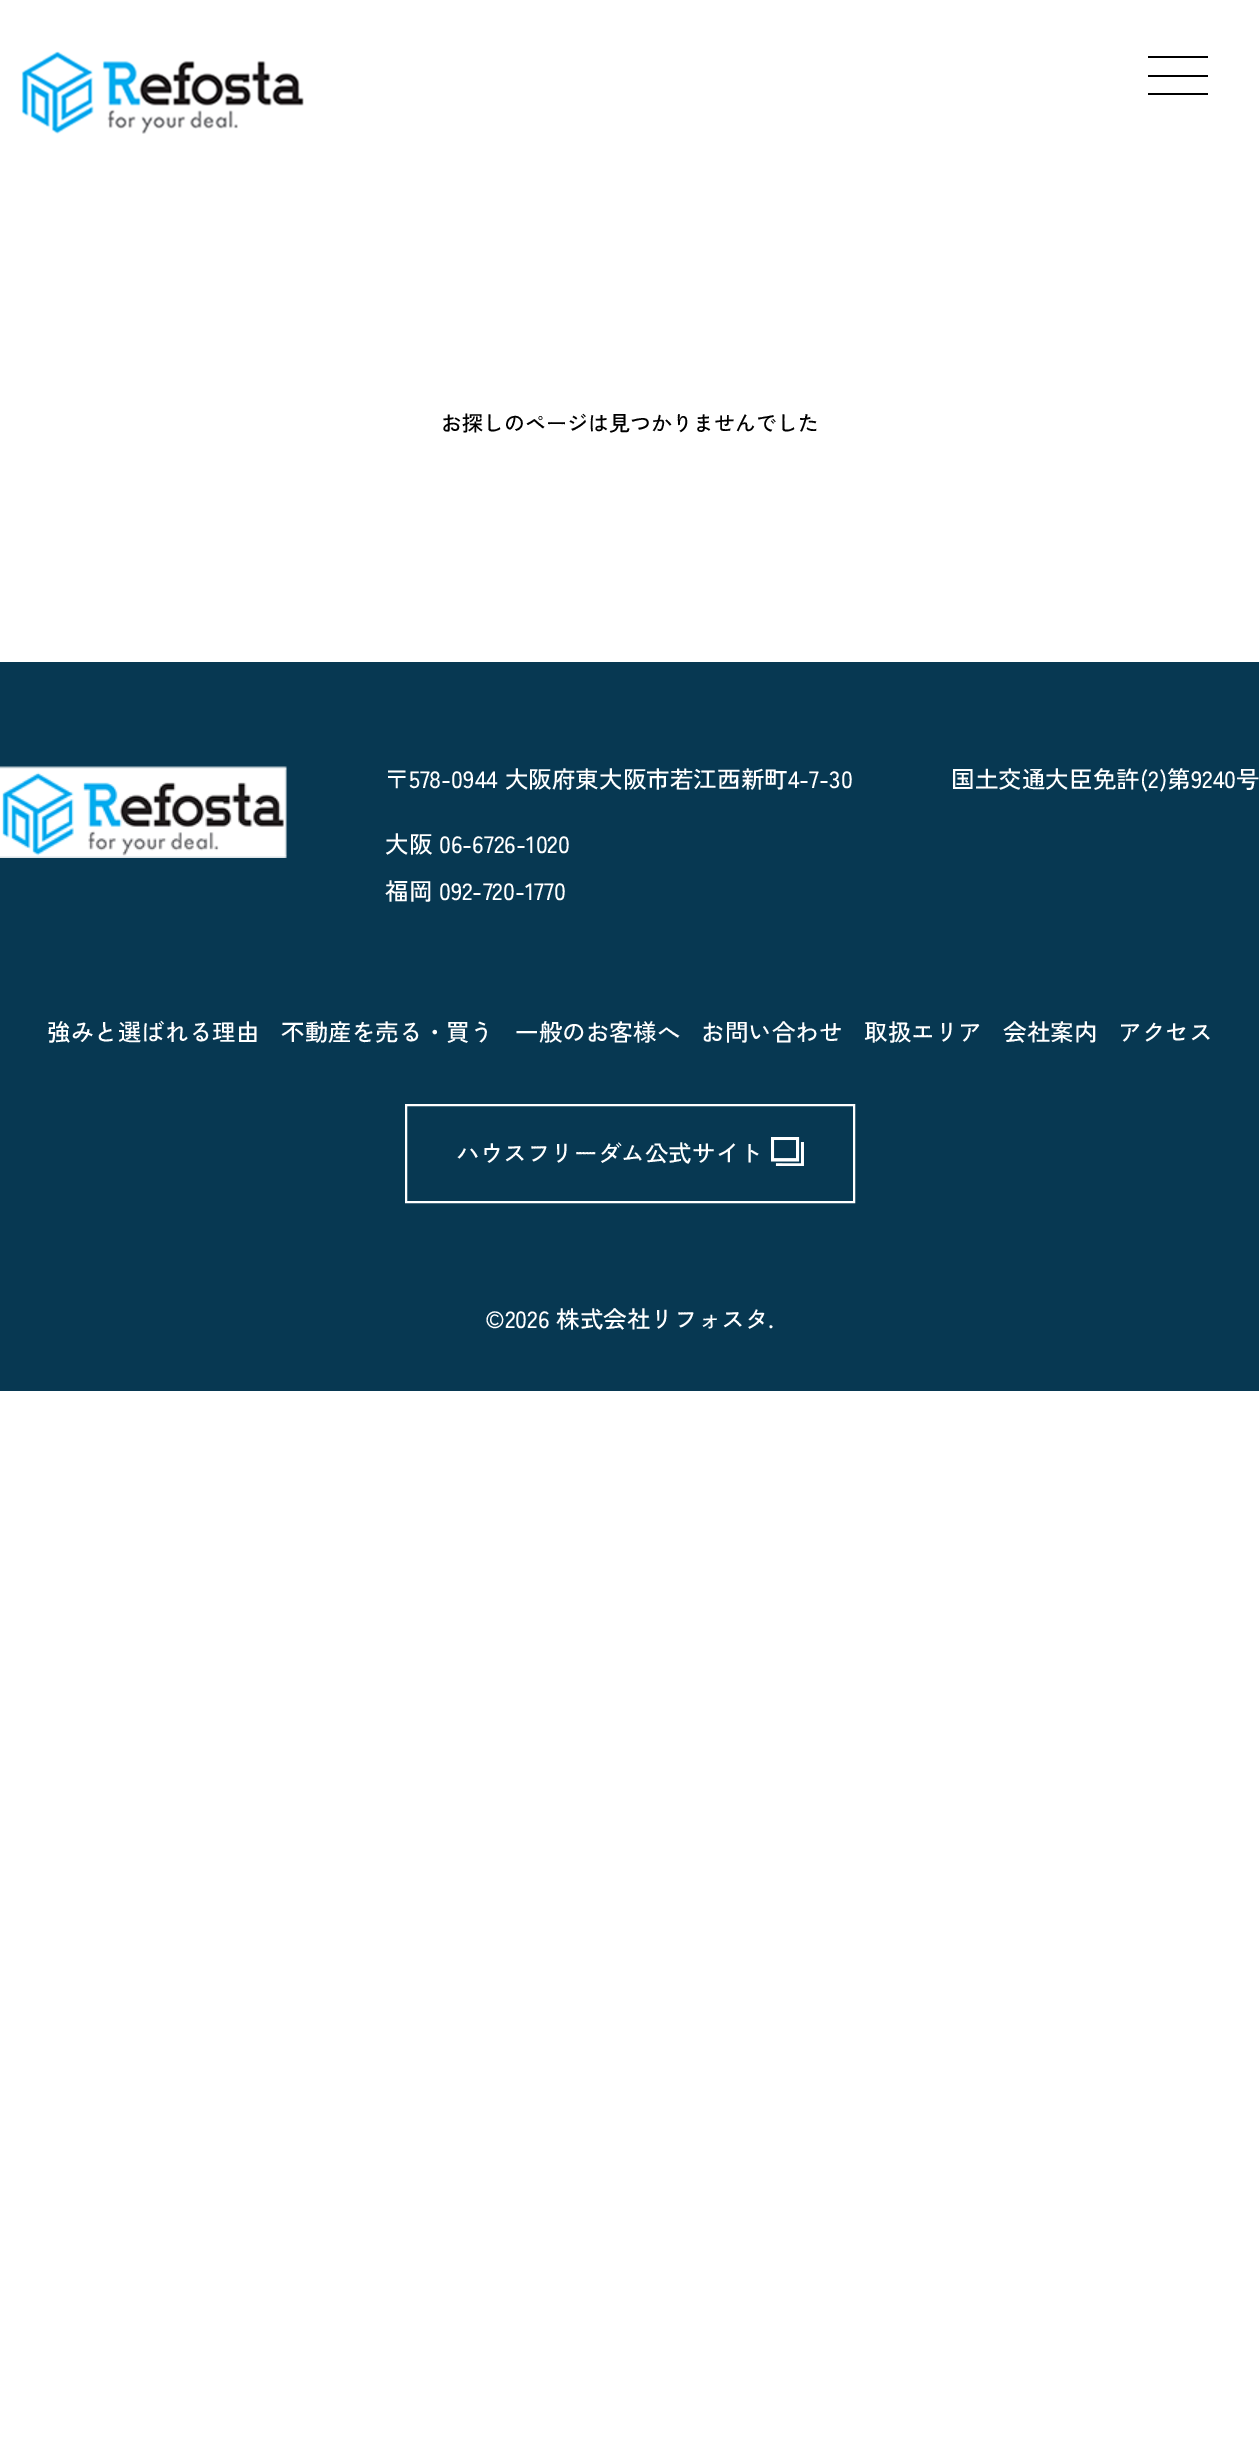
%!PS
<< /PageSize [1259 2464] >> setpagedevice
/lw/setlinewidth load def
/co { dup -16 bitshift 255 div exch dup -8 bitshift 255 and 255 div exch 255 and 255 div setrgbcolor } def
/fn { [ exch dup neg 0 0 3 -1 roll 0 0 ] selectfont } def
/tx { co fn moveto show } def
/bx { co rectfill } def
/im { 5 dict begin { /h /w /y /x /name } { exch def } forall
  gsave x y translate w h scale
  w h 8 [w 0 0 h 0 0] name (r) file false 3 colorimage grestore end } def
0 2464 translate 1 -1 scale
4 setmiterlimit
0 0 1259 2464 16#FFFFFF bx
(media/1.raw) 21 51 283 83 im
1148 56 60 2 16#000000 bx
1148 75 60 2 16#000000 bx
1148 93 60 2 16#000000 bx
0 662 1259 729 16#073852 bx
(media/2.raw) 0 766 287 92 im
16#FFFFFF co
2 lw
406 1105 448 97 rectstroke
(media/3.raw) 771 1137 33 29 im
(お探しのページは見つかりませんでした) 441 431 /ZenKakuGothicNew-Medium 21 16#000000 tx
(〒578-0944 大阪府東大阪市若江西新町4-7-30) 385 788 /ZenKakuGothicNew-Medium 23.6 16#FFFFFF tx
(大阪 06-6726-1020) 385 853 /ZenKakuGothicNew-Medium 23.6 16#FFFFFF tx
(福岡 092-720-1770) 385 900 /ZenKakuGothicNew-Medium 23.6 16#FFFFFF tx
(国土交通大臣免許\(2\)第9240号) 951 788 /ZenKakuGothicNew-Medium 23.6 16#FFFFFF tx
(強みと選ばれる理由) 47 1041 /ZenKakuGothicNew-Medium 23.6 16#FFFFFF tx
(不動産を売る・買う) 281 1041 /ZenKakuGothicNew-Medium 23.6 16#FFFFFF tx
(一般のお客様へ) 515 1041 /ZenKakuGothicNew-Medium 23.6 16#FFFFFF tx
(お問い合わせ) 701 1041 /ZenKakuGothicNew-Medium 23.6 16#FFFFFF tx
(取扱エリア) 864 1041 /ZenKakuGothicNew-Medium 23.6 16#FFFFFF tx
(会社案内) 1003 1041 /ZenKakuGothicNew-Medium 23.6 16#FFFFFF tx
(アクセス) 1118 1041 /ZenKakuGothicNew-Medium 23.6 16#FFFFFF tx
(ハウスフリーダム公式サイト) 456 1162 /ZenKakuGothicNew-Medium 23.6 16#FFFFFF tx
(©2026 株式会社リフォスタ.) 485 1328 /ZenKakuGothicNew-Medium 23.6 16#FFFFFF tx
showpage
